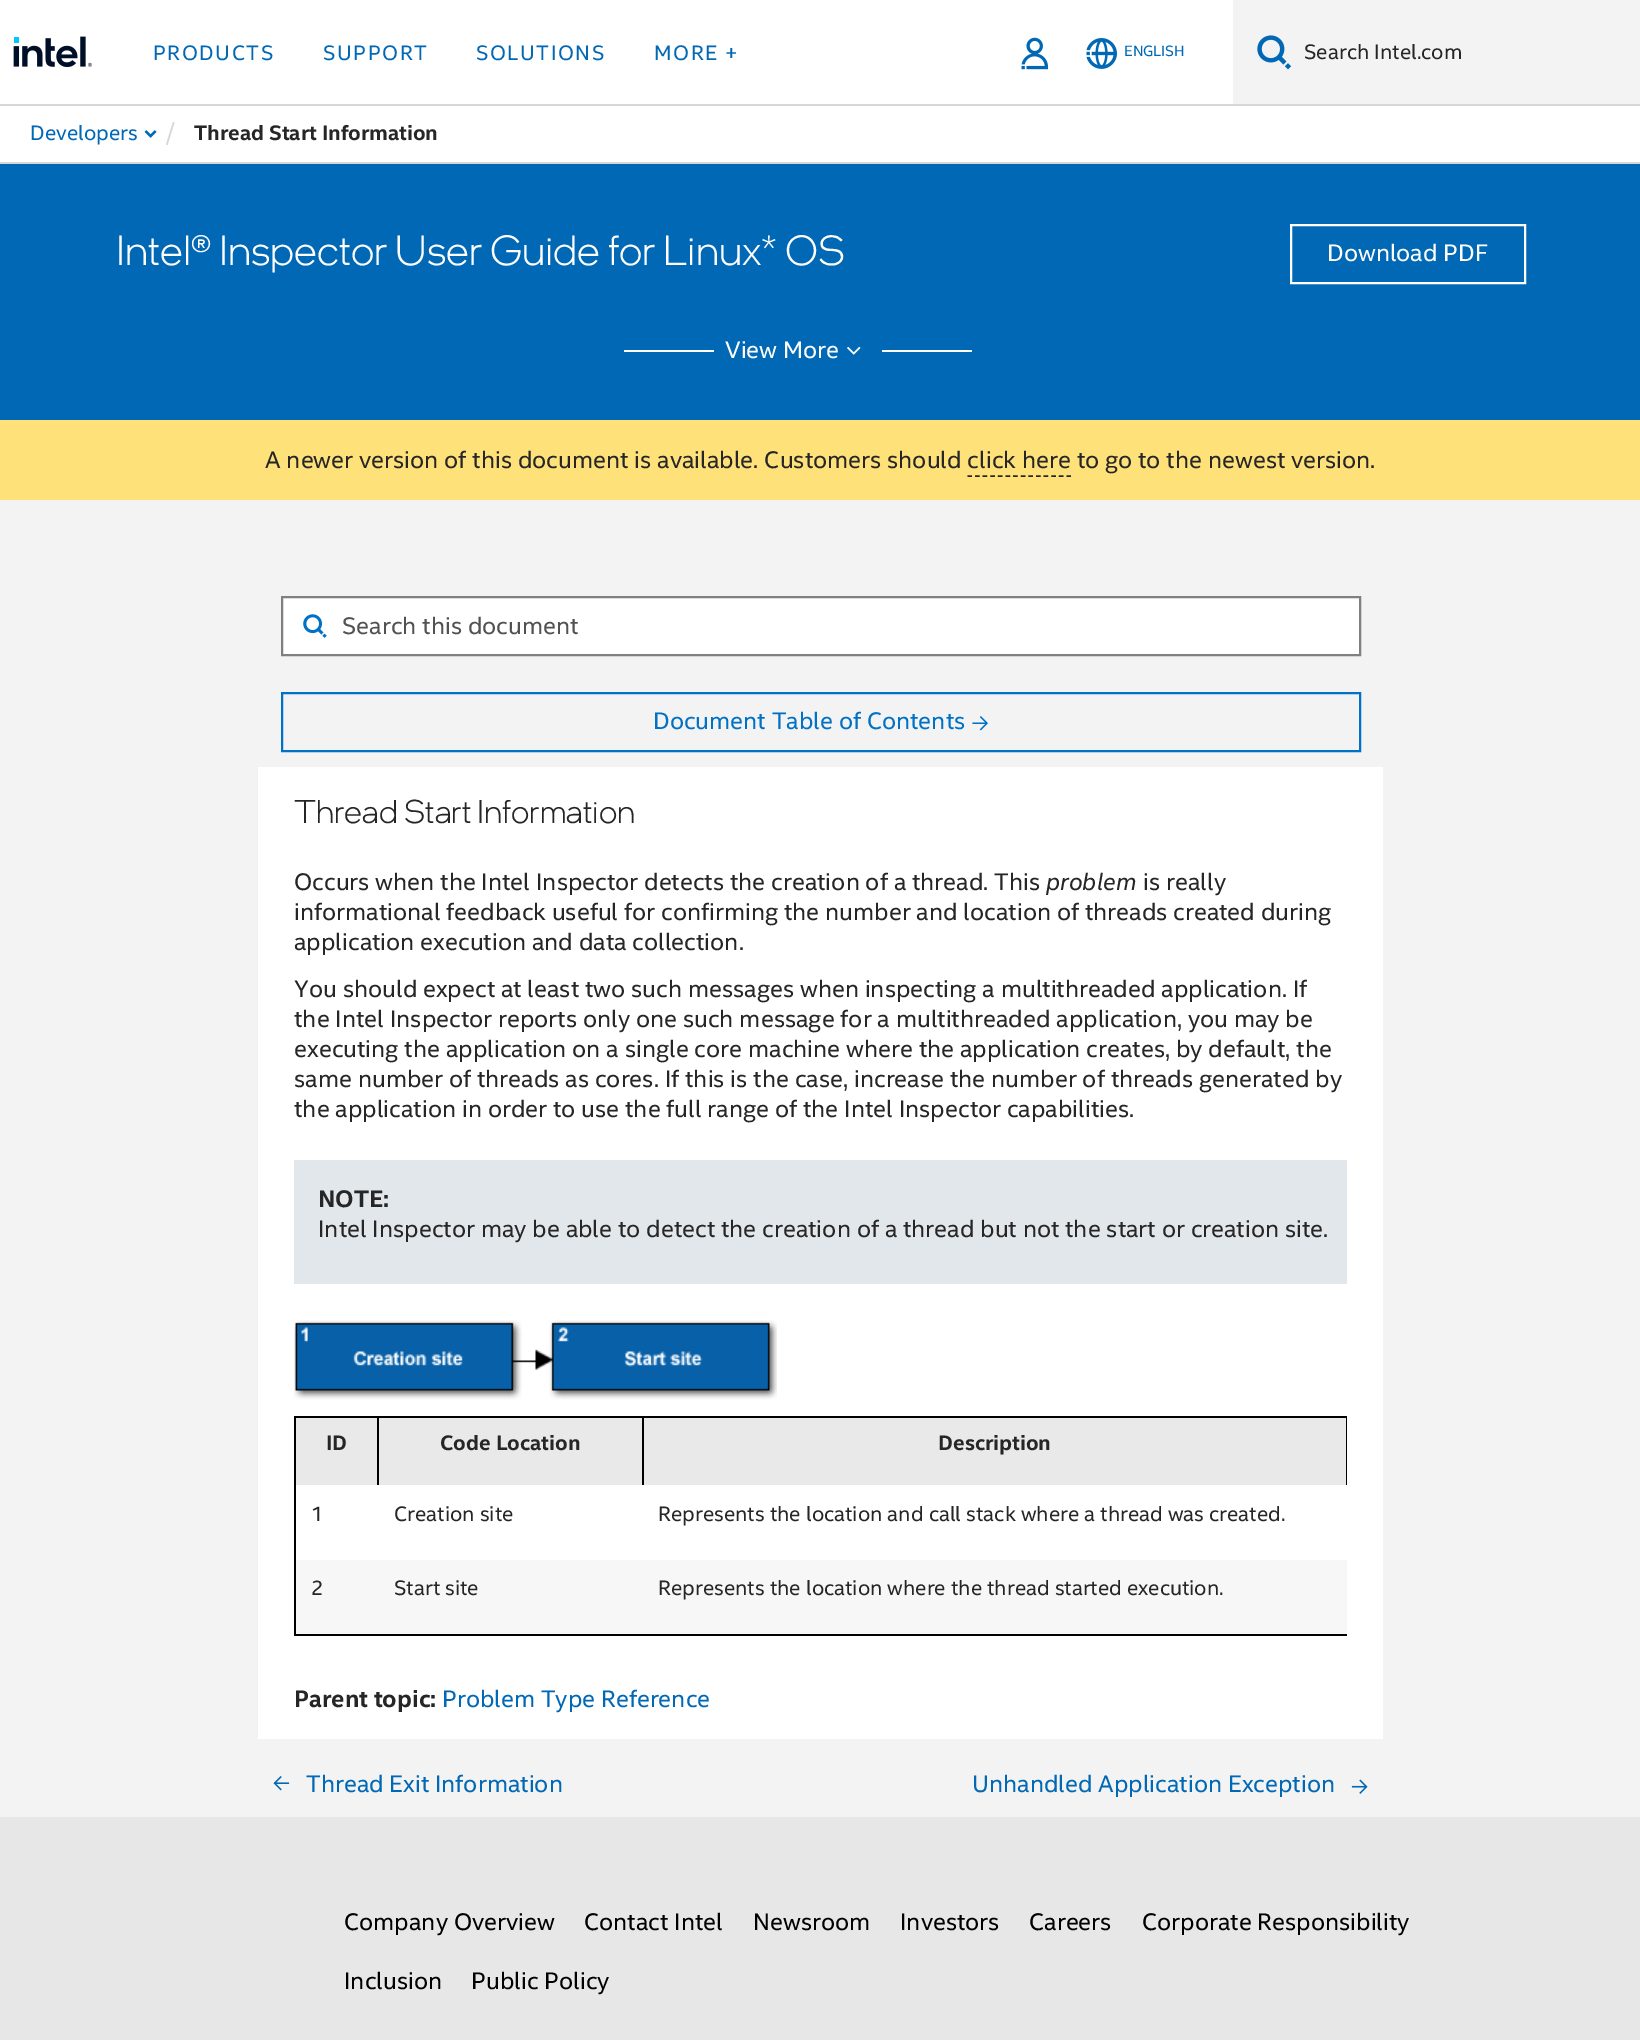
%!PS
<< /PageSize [1640 2040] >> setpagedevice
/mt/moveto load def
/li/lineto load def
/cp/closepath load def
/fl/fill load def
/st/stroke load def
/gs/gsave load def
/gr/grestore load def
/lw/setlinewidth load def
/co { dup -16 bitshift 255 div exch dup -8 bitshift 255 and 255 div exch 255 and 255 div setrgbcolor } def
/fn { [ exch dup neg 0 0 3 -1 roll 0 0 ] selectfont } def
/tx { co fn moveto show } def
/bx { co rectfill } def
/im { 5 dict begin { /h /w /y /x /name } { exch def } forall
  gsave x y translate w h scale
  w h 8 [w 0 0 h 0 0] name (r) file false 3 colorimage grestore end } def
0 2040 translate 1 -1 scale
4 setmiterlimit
0 0 1640 2040 16#FFFFFF bx
0 104 1640 2 16#D7D7D7 bx
(media/1.raw) 13 36 79 32 im
(media/2.raw) 1021 37 27 33 im
(media/3.raw) 1086 38 31 31 im
1233 0 407 104 16#F3F3F3 bx
(media/4.raw) 1257 35 35 35 im
0 162 1640 2 16#D7D7D7 bx
(media/5.raw) 144 130 13 8 im
173 122 mt 174.5 122.5 li 167.5 145 li 166 144.5 li cp fl
0 164 1640 256 16#0068B5 bx
16#FFFFFF co
2 lw
1291 225 234 58 rectstroke
624 350 90 2 16#FFFFFF bx
(media/6.raw) 847 346 14 9 im
882 350 90 2 16#FFFFFF bx
0 420 1640 80 16#FFE17A bx
16#262626 co
1.5 lw
[4.5 3.12] 0 setdash
967.5 476 mt 1071 476 li st
0 500 1640 1317 16#F3F3F3 bx
16#FFFFFF co
282 597 mt 1360 597 li 1360 655 li 282 655 li cp gs fl gr
16#808080 co
2 lw
[] 0 setdash
st
(media/7.raw) 303 614 24 24 im
16#0071C5 co
282 693 1078 58 rectstroke
(media/8.raw) 972 716 16 15 im
258 767 1125 972 16#FFFFFF bx
294 1160 1053 124 16#E2E7EB bx
(media/9.raw) 294 1320 483 80 im
296 1418 81 67 16#E9E9E9 bx
642 1416 705 2 16#000000 bx
642 1416 2 71 16#000000 bx
377 1416 267 2 16#000000 bx
377 1416 2 71 16#000000 bx
294 1416 84 2 16#000000 bx
294 1634 1053 2 16#000000 bx
294 1485 2 150 16#000000 bx
294 1416 2 71 16#000000 bx
379 1418 263 67 16#E9E9E9 bx
644 1418 702 67 16#E9E9E9 bx
1346 1416 1 71 16#000000 bx
377 1485 2 2 16#FFFFFF bx
642 1485 705 2 16#FFFFFF bx
296 1560 1051 74 16#F7F7F7 bx
(media/10.raw) 273 1776 17 15 im
(media/11.raw) 1351 1779 17 15 im
0 1817 1640 223 16#E7E7E7 bx
/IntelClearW-Regular 21 fn
16#0068B5 co
153 60 mt 1.5 0 (PRODUCTS) ashow
323 60 mt 1.5 0 (SUPPORT) ashow
476 60 mt 1.5 0 (SOLUTIONS) ashow
654 60 mt 1.5 0 (MORE +) ashow
(ENGLISH) 1124 56 /IntelClearW-Regular 15 16#0068B5 tx
(Search Intel.com) 1304 59 /IntelClearW-Regular 21 16#262626 tx
(Developers) 30 140 /IntelClearW-Regular 21 16#0068B5 tx
(Thread Start Information) 194 140 /IntelClearW-Bold 21 16#262626 tx
(Intel® Inspector User Guide for Linux* OS) 116 265 /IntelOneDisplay-Light 42 16#FFFFFF tx
(Download PDF) 1327 261 /IntelClearW-Regular 24 16#FFFFFF tx
(View More) 725 358 /IntelClearW-Regular 24 16#FFFFFF tx
(A newer version of this document is available. Customers should click here to go to the newest version.) 265 468 /IntelClearW-Regular 24 16#262626 tx
(Search this document) 342 634 /IntelClearW-Regular 24 16#525252 tx
(Document Table of Contents) 653 729 /IntelClearW-Regular 24 16#0071C5 tx
(Thread Start Information) 294 823 /IntelOneDisplay-Light 33 16#262626 tx
(Occurs when the Intel Inspector detects the creation of a thread. This) 294 890 /IntelClearW-Regular 24 16#262626 tx
(problem) 1046 890 /IntelClearW-Italic 24 16#262626 tx
(is really) 1143 890 /IntelClearW-Regular 24 16#262626 tx
(informational feedback useful for confirming the number and location of threads created during) 294 920 /IntelClearW-Regular 24 16#262626 tx
(application execution and data collection.) 294 950 /IntelClearW-Regular 24 16#262626 tx
(You should expect at least two such messages when inspecting a multithreaded application. If) 294 997 /IntelClearW-Regular 24 16#262626 tx
(the Intel Inspector reports only one such message for a multithreaded application, you may be) 294 1027 /IntelClearW-Regular 24 16#262626 tx
(executing the application on a single core machine where the application creates, by default, the) 294 1057 /IntelClearW-Regular 24 16#262626 tx
(same number of threads as cores. If this is the case, increase the number of threads generated by) 294 1087 /IntelClearW-Regular 24 16#262626 tx
(the application in order to use the full range of the Intel Inspector capabilities.) 294 1117 /IntelClearW-Regular 24 16#262626 tx
(NOTE:) 318 1207 /IntelClearW-Bold 24 16#262626 tx
(Intel Inspector may be able to detect the creation of a thread but not the start or creation site.) 318 1237 /IntelClearW-Regular 24 16#262626 tx
(ID) 326 1450 /IntelClearW-Bold 21 16#262626 tx
(Code Location) 440 1450 /IntelClearW-Bold 21 16#262626 tx
(Description) 938 1450 /IntelClearW-Bold 21 16#262626 tx
(1) 311 1521 /IntelClearW-Regular 21 16#262626 tx
(Creation site) 394 1521 /IntelClearW-Regular 21 16#262626 tx
(Represents the location and call stack where a thread was created.) 658 1521 /IntelClearW-Regular 21 16#262626 tx
(2) 311 1595 /IntelClearW-Regular 21 16#262626 tx
(Start site) 394 1595 /IntelClearW-Regular 21 16#262626 tx
(Represents the location where the thread started execution.) 658 1595 /IntelClearW-Regular 21 16#262626 tx
(Parent topic:) 294 1707 /IntelClearW-Bold 24 16#262626 tx
(Problem Type Reference) 442 1707 /IntelClearW-Regular 24 16#0068B5 tx
(Thread Exit Information) 306 1792 /IntelClearW-Regular 24 16#0068B5 tx
(Unhandled Application Exception) 972 1792 /IntelClearW-Regular 24 16#0068B5 tx
(Company Overview) 344 1930 /IntelClearW-Regular 24 16#000000 tx
(Contact Intel) 584 1930 /IntelClearW-Regular 24 16#000000 tx
(Newsroom) 753 1930 /IntelClearW-Regular 24 16#000000 tx
(Investors) 900 1930 /IntelClearW-Regular 24 16#000000 tx
(Careers) 1029 1930 /IntelClearW-Regular 24 16#000000 tx
(Corporate Responsibility) 1142 1930 /IntelClearW-Regular 24 16#000000 tx
(Inclusion) 344 1989 /IntelClearW-Regular 24 16#000000 tx
(Public Policy) 471 1989 /IntelClearW-Regular 24 16#000000 tx
showpage
